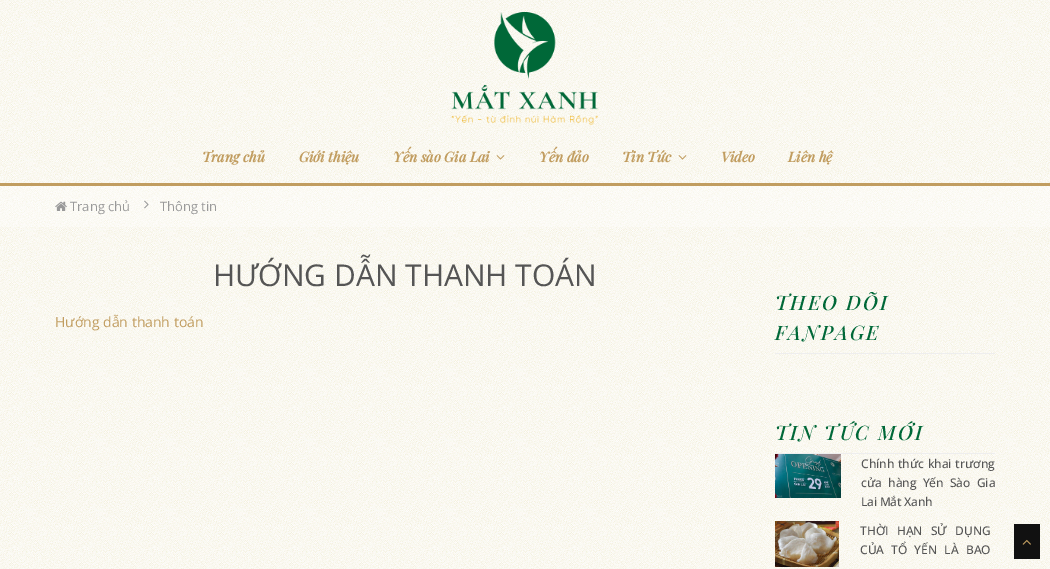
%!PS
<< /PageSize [1050 569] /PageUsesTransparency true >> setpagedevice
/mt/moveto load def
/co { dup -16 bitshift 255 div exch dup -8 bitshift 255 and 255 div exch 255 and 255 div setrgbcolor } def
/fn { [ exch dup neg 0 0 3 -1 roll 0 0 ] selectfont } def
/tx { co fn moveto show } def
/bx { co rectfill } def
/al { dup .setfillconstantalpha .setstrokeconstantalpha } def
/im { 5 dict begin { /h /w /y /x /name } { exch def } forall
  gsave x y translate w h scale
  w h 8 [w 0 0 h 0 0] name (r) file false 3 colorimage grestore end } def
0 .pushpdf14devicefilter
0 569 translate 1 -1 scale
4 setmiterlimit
0 0 1050 569 16#FFFFFF bx
(media/1.raw) 0 0 1050 569 im
(media/2.raw) 451 12 147 113 im
0 183 1050 3 16#C19D60 bx
(media/3.raw) 496 155 9 5 im
(media/4.raw) 678 155 9 5 im
0.3 al
0 186 1050 41 16#FFFFFF bx
1 al
(media/5.raw) 55 201 12 10 im
(media/6.raw) 144 200 5 9 im
775 353 220 1 16#EEEEEE bx
775 453 220 1 16#EEEEEE bx
(media/7.raw) 775 454 66 44 im
(media/8.raw) 775 521 64 46 im
1014 524 26 35 16#111111 bx
(media/9.raw) 1022 539 9 6 im
(Trang chủ) 202 162 /PlayfairDisplay-BoldItalic 14 16#C19D60 tx
(Giới thiệu) 299 162 /PlayfairDisplay-BoldItalic 14 16#C19D60 tx
(Yến sào Gia Lai) 393 162 /PlayfairDisplay-BoldItalic 14 16#C19D60 tx
(Yến đảo) 539 162 /PlayfairDisplay-BoldItalic 14 16#C19D60 tx
(Tin Tức) 622 162 /PlayfairDisplay-BoldItalic 14 16#C19D60 tx
(Video) 721 162 /PlayfairDisplay-BoldItalic 14 16#C19D60 tx
(Liên hệ) 788 162 /PlayfairDisplay-BoldItalic 14 16#C19D60 tx
(Trang chủ) 70 211 /OpenSans-Regular 13 16#999999 tx
(Thông tin) 160 211 /OpenSans-Regular 13 16#999999 tx
(HƯỚNG DẪN THANH TOÁN) 213 286 /OpenSans-Regular 30 16#555555 tx
(Hướng dẫn thanh toán) 55 327 /OpenSans-Regular 14 16#C19D60 tx
/PlayfairDisplay-MediumItalic 20 fn
16#006838 co
775 310 mt 2 0 (THEO DÕI) ashow
775 340 mt 2 0 (FANPAGE) ashow
775 440 mt 2 0 (TIN TỨC MỚI) ashow
/OpenSans-Medium 12 fn
16#555555 co
861 468 mt .5 0 32 (Chính thức khai trương) widthshow
861 487 mt 3 0 32 (cửa hàng Yến Sào Gia) widthshow
861 506 mt -1 0 32 (Lai Mắt Xanh) widthshow
860 535 mt 5 0 32 (THỜI HẠN SỬ DỤNG) widthshow
860 554 mt 4 0 32 (CỦA TỔ YẾN LÀ BAO) widthshow
.poppdf14devicefilter showpage
